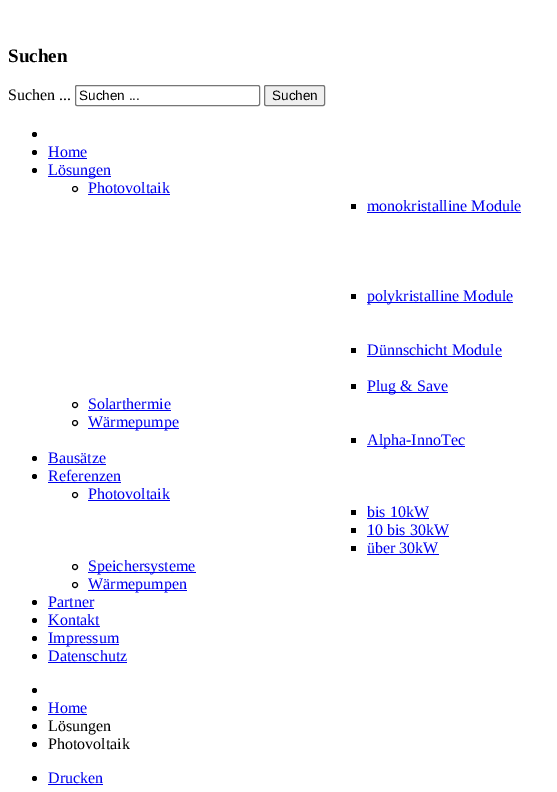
%!PS
<< /PageSize [557 792] >> setpagedevice
/fl/fill load def
/st/stroke load def
/gs/gsave load def
/gr/grestore load def
/co { dup -16 bitshift 255 div exch dup -8 bitshift 255 and 255 div exch 255 and 255 div setrgbcolor } def
/fn { [ exch dup neg 0 0 3 -1 roll 0 0 ] selectfont } def
/tx { co fn moveto show } def
/bx { co rectfill } def
/ci { newpath 0 360 arc closepath } def
/rr { 5 dict begin { /r /h /w /y /x } { exch def } forall
  x r add y moveto x w add y 2 copy h add r arct x w add y h add x 1 index r arct
  x y h add x y r arct x y 2 copy exch w add exch r arct closepath end } def
0 792 translate 1 -1 scale
4 setmiterlimit
0 0 557 792 16#FFFFFF bx
16#767676 co
75.5 85.5 184 20 1.5 rr st
16#EFEFEF co
264.5 85.5 60 20 1.5 rr gs fl gr
16#767676 co
st
16#000000 co
34.5 134.5 2.5 ci fl
34.5 152.5 2.5 ci fl
48 158 39 1 16#0000EE bx
16#000000 co
34.5 170.5 2.5 ci fl
48 176 63 1 16#0000EE bx
16#000000 co
75 189 2.5 ci st
88 194 82 1 16#0000EE bx
351 204 5 5 16#000000 bx
367 212 154 1 16#0000EE bx
351 294 5 5 16#000000 bx
367 302 146 1 16#0000EE bx
351 348 5 5 16#000000 bx
367 356 135 1 16#0000EE bx
351 384 5 5 16#000000 bx
367 392 81 1 16#0000EE bx
16#000000 co
75 405 2.5 ci st
88 410 83 1 16#0000EE bx
16#000000 co
75 423 2.5 ci st
88 428 91 1 16#0000EE bx
351 438 5 5 16#000000 bx
367 446 98 1 16#0000EE bx
16#000000 co
34.5 458.5 2.5 ci fl
48 464 58 1 16#0000EE bx
16#000000 co
34.5 476.5 2.5 ci fl
48 482 73 1 16#0000EE bx
16#000000 co
75 495 2.5 ci st
88 500 82 1 16#0000EE bx
351 510 5 5 16#000000 bx
367 518 62 1 16#0000EE bx
351 528 5 5 16#000000 bx
367 536 82 1 16#0000EE bx
351 546 5 5 16#000000 bx
367 554 72 1 16#0000EE bx
16#000000 co
75 567 2.5 ci st
88 572 108 1 16#0000EE bx
16#000000 co
75 585 2.5 ci st
88 590 99 1 16#0000EE bx
16#000000 co
34.5 602.5 2.5 ci fl
48 608 46 1 16#0000EE bx
16#000000 co
34.5 620.5 2.5 ci fl
48 626 52 1 16#0000EE bx
16#000000 co
34.5 638.5 2.5 ci fl
48 644 71 1 16#0000EE bx
16#000000 co
34.5 656.5 2.5 ci fl
48 662 79 1 16#0000EE bx
16#000000 co
34.5 690.5 2.5 ci fl
34.5 708.5 2.5 ci fl
48 714 39 1 16#0000EE bx
16#000000 co
34.5 726.5 2.5 ci fl
34.5 744.5 2.5 ci fl
34.5 778.5 2.5 ci fl
48 784 55 1 16#0000EE bx
(Suchen) 8 62 /LiberationSerif-Bold 19 16#000000 tx
(Suchen ...) 8 100 /LiberationSerif-Regular 16 16#000000 tx
(Suchen ...) 79 100 /LiberationSans-Regular 13.5 16#000000 tx
(Suchen) 272 100 /LiberationSans-Regular 13.5 16#000000 tx
(Home) 48 157 /LiberationSerif-Regular 16 16#0000EE tx
(Lösungen) 48 175 /LiberationSerif-Regular 16 16#0000EE tx
(Photovoltaik) 88 193 /LiberationSerif-Regular 16 16#0000EE tx
(monokristalline Module) 367 211 /LiberationSerif-Regular 16 16#0000EE tx
(polykristalline Module) 367 301 /LiberationSerif-Regular 16 16#0000EE tx
(Dünnschicht Module) 367 355 /LiberationSerif-Regular 16 16#0000EE tx
(Plug & Save) 367 391 /LiberationSerif-Regular 16 16#0000EE tx
(Solarthermie) 88 409 /LiberationSerif-Regular 16 16#0000EE tx
(Wärmepumpe) 88 427 /LiberationSerif-Regular 16 16#0000EE tx
(Alpha-InnoTec) 367 445 /LiberationSerif-Regular 16 16#0000EE tx
(Bausätze) 48 463 /LiberationSerif-Regular 16 16#0000EE tx
(Referenzen) 48 481 /LiberationSerif-Regular 16 16#0000EE tx
(Photovoltaik) 88 499 /LiberationSerif-Regular 16 16#0000EE tx
(bis 10kW) 367 517 /LiberationSerif-Regular 16 16#0000EE tx
(10 bis 30kW) 367 535 /LiberationSerif-Regular 16 16#0000EE tx
(über 30kW) 367 553 /LiberationSerif-Regular 16 16#0000EE tx
(Speichersysteme) 88 571 /LiberationSerif-Regular 16 16#0000EE tx
(Wärmepumpen) 88 589 /LiberationSerif-Regular 16 16#0000EE tx
(Partner) 48 607 /LiberationSerif-Regular 16 16#0000EE tx
(Kontakt) 48 625 /LiberationSerif-Regular 16 16#0000EE tx
(Impressum) 48 643 /LiberationSerif-Regular 16 16#0000EE tx
(Datenschutz) 48 661 /LiberationSerif-Regular 16 16#0000EE tx
(Home) 48 713 /LiberationSerif-Regular 16 16#0000EE tx
(Lösungen) 48 731 /LiberationSerif-Regular 16 16#000000 tx
(Photovoltaik) 48 749 /LiberationSerif-Regular 16 16#000000 tx
(Drucken) 48 783 /LiberationSerif-Regular 16 16#0000EE tx
showpage
